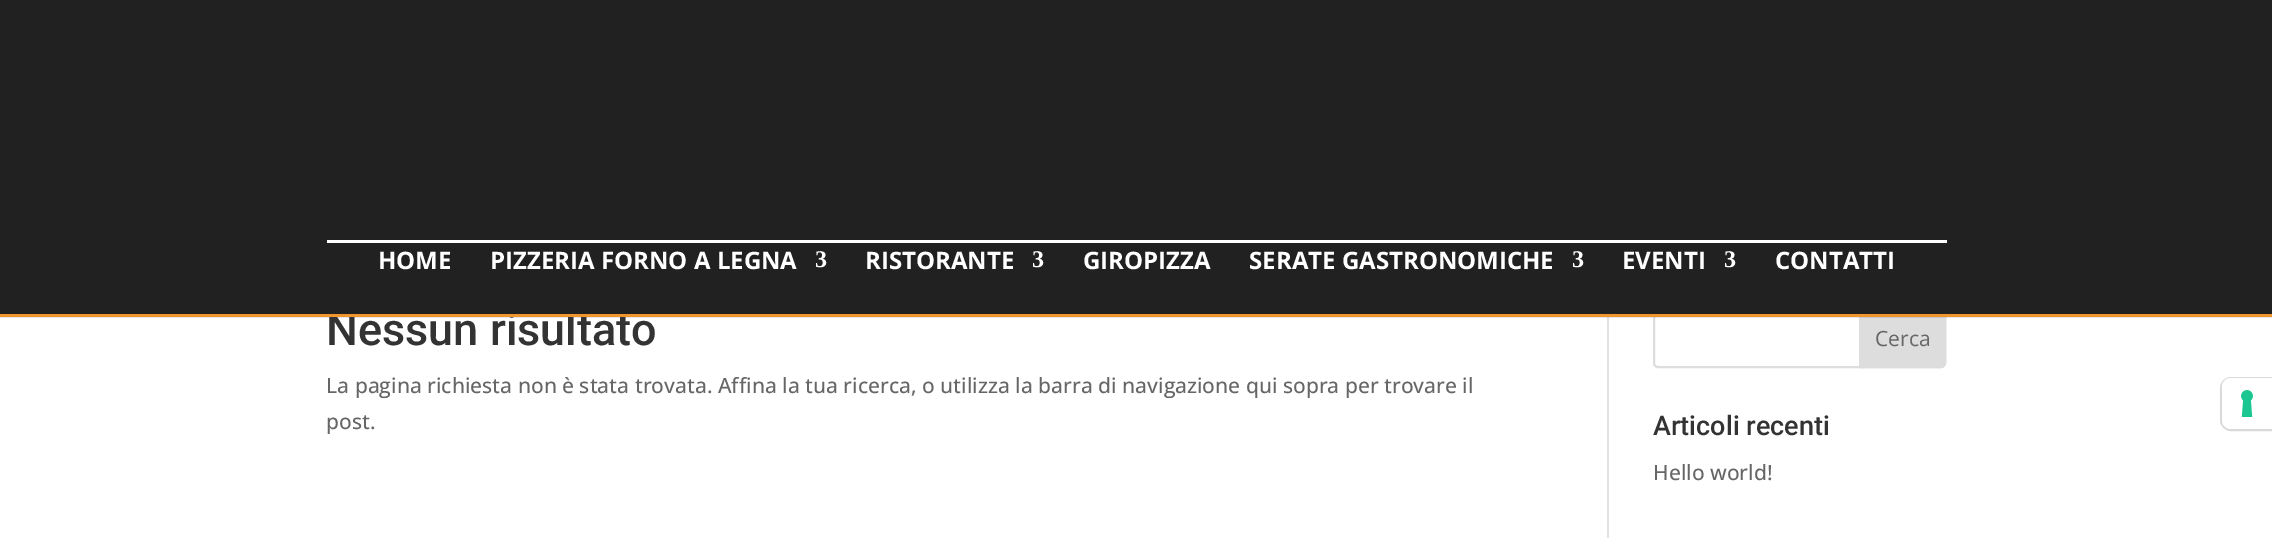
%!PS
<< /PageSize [2272 538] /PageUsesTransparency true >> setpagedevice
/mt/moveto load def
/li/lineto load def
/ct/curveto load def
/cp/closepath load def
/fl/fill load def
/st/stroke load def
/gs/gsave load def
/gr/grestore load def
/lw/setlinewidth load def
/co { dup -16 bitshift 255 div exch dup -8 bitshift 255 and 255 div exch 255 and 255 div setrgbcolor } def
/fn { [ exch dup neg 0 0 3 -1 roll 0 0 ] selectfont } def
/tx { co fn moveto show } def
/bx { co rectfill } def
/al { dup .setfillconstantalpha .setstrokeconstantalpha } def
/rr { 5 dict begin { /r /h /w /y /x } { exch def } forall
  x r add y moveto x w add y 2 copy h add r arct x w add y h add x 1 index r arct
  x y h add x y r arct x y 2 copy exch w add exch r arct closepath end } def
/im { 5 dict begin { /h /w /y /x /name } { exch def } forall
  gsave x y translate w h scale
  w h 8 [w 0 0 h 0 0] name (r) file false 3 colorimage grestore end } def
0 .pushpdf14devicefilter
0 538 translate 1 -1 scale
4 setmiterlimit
0 0 2272 538 16#FFFFFF bx
16#DDDDDD co
2 lw
1654 309 291 58 4 rr st
1860 309 mt 1941 309 li 1943 309 1945 311 1945 313 ct 1945 363 li 1945 365 1943 367 1941 367 ct 1860 367 li cp gs fl gr
st
1607 317 2 221 16#E2E2E2 bx
0.1 al
16#000000 co
0 316 mt 0 318 li 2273 318 li 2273 2 li 2272 2 li 2272 316 li cp fl
1 al
16#D9D9D9 co
2231 378 mt 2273 378 li 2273 430 li 2231 430 li 2225.5 430 2221 425.5 2221 420 ct 2221 388 li 2221 382.5 2225.5 378 2231 378 ct cp st
16#FFFFFF co
2231 378 mt 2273 378 li 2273 429 li 2231 429 li 2226 429 2222 425 2222 420 ct 2222 387 li 2222 382 2226 378 2231 378 ct cp fl
(media/1.raw) 2241 390 12 27 im
(Nessun risultato) 326 345 /Roboto-Medium 45 16#333333 tx
0 0 2272 314 16#212121 bx
(CONTATTI) 1775 269 /OpenSans-Bold 24 16#FFFFFF tx
(3) 1724 267 /LiberationSerif-Bold 24 16#FFFFFF tx
(EVENTI) 1622 269 /OpenSans-Bold 24 16#FFFFFF tx
(3) 1572 267 /LiberationSerif-Bold 24 16#FFFFFF tx
(SERATE GASTRONOMICHE) 1249 269 /OpenSans-Bold 24 16#FFFFFF tx
(GIROPIZZA) 1083 269 /OpenSans-Bold 24 16#FFFFFF tx
(3) 1032 267 /LiberationSerif-Bold 24 16#FFFFFF tx
(RISTORANTE) 865 269 /OpenSans-Bold 24 16#FFFFFF tx
(3) 815 267 /LiberationSerif-Bold 24 16#FFFFFF tx
(PIZZERIA FORNO A LEGNA) 490 269 /OpenSans-Bold 24 16#FFFFFF tx
(HOME) 378 269 /OpenSans-Bold 24 16#FFFFFF tx
327 240 1620 3 16#FFFFFF bx
0 314 2272 3 16#EF972E bx
(La pagina richiesta non è stata trovata. Affina la tua ricerca, o utilizza la barra di navigazione qui sopra per trovare il) 326 393 /OpenSans-Medium 21 16#666666 tx
(post.) 326 429 /OpenSans-Medium 21 16#666666 tx
(Cerca) 1875 346 /OpenSans-Regular 21 16#666666 tx
(Articoli recenti) 1653 435 /Roboto-Medium 27 16#333333 tx
(Hello world!) 1653 480 /OpenSans-Medium 21 16#666666 tx
.poppdf14devicefilter showpage
